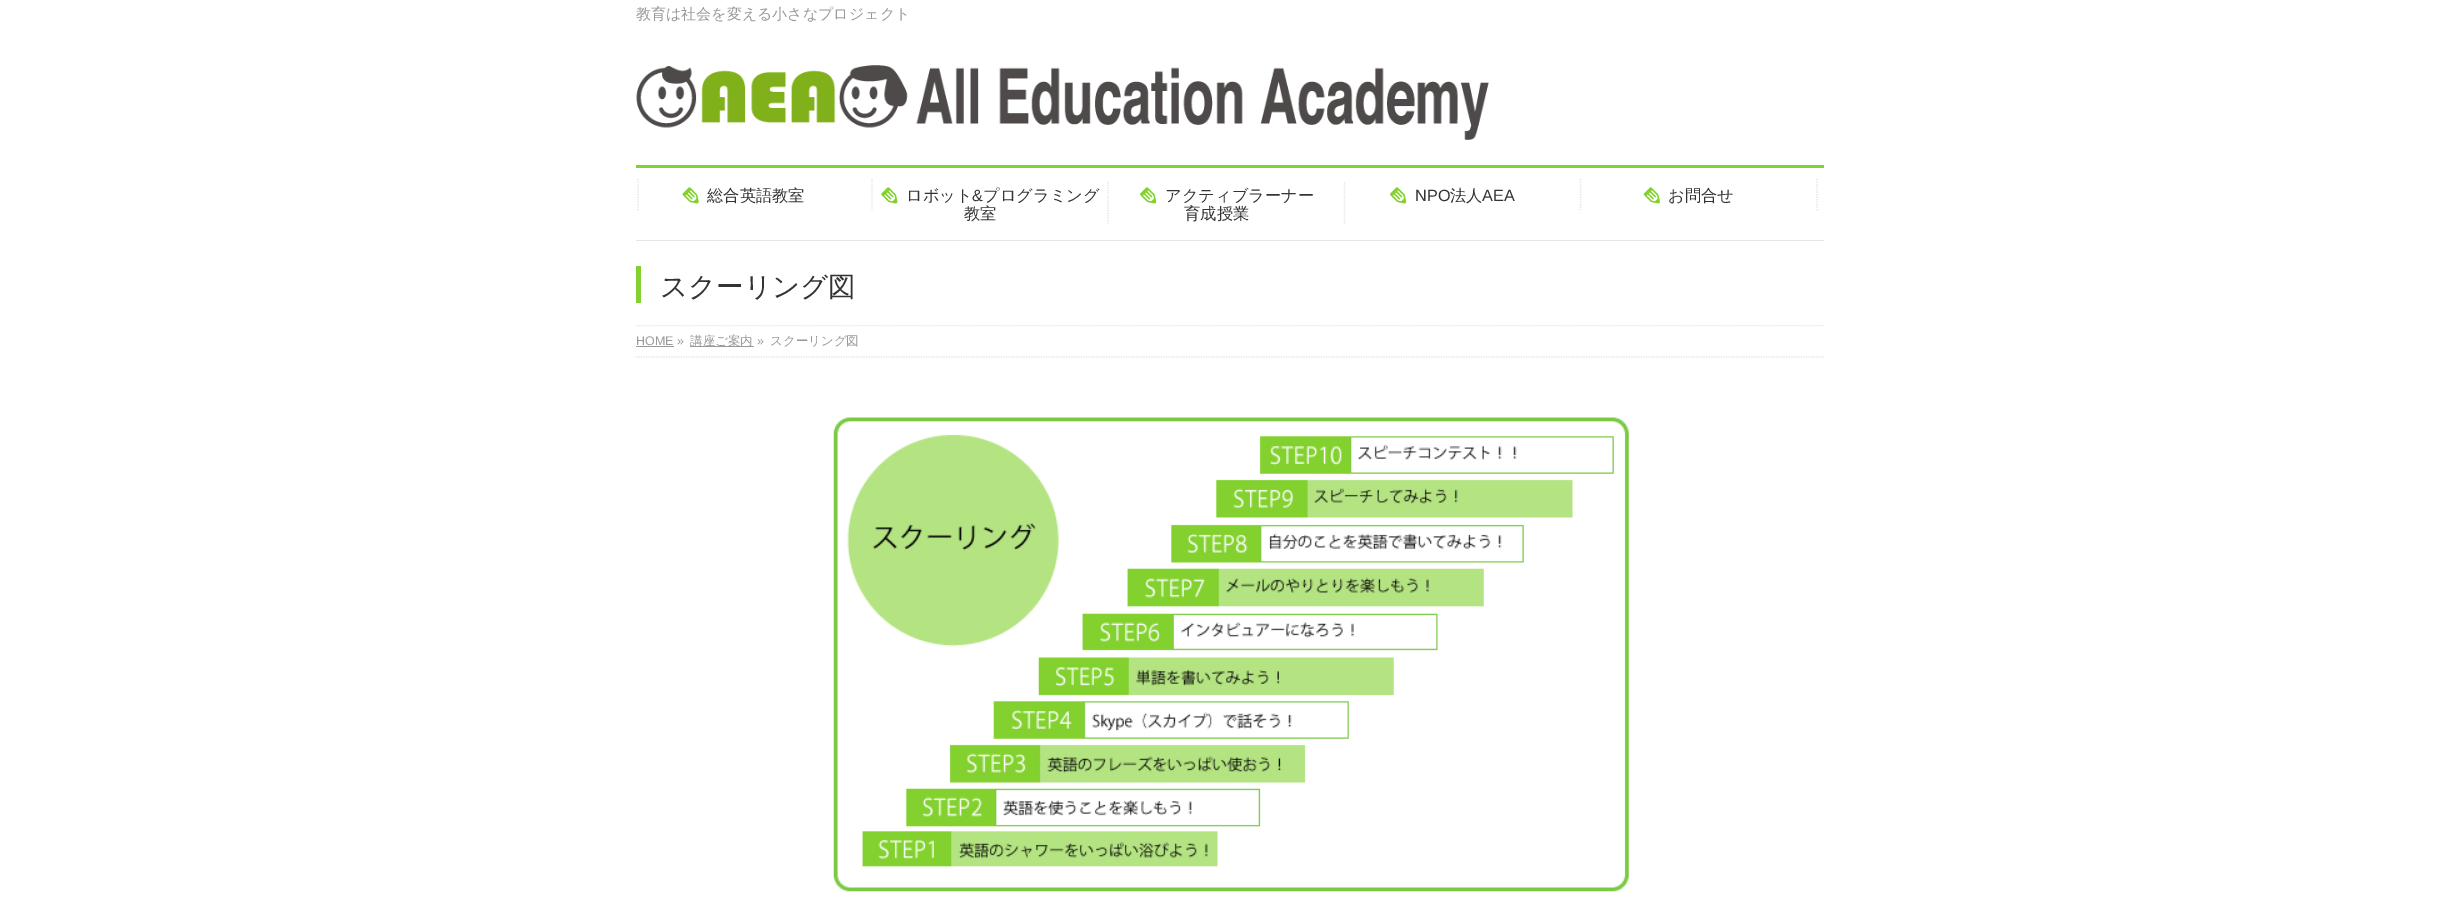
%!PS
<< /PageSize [2459 907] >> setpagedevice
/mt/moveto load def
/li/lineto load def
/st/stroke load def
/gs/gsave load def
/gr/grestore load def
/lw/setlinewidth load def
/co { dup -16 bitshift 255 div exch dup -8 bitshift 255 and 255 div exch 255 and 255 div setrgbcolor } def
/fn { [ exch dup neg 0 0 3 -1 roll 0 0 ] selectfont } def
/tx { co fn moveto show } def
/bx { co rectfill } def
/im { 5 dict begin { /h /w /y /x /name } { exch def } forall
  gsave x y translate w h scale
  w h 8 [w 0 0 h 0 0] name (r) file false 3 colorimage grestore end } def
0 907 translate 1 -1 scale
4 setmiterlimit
0 0 2459 907 16#FFFFFF bx
(media/1.raw) 636 65 853 75 im
636 165 1188 3 16#82D12E bx
636 240 1188 1 16#E5E5E5 bx
1.2 lw
[1.25 1.25] 0 setdash
638 179 mt 638 211 li st
(media/2.raw) 682 187 17 17 im
872 179 mt 872 211 li st
(media/3.raw) 881 187 17 17 im
1108 182.5 mt 1108 225 li st
(media/4.raw) 1140 187 17 17 im
1344.5 182.5 mt 1344.5 225 li st
(media/4.raw) 1390 187 17 17 im
1580.5 179 mt 1580.5 211 li st
(media/5.raw) 1643 187 17 17 im
1817 179 mt 1817 211 li st
636 266 5 37 16#82D12E bx
gs
605 325 1250 33 rectclip
16#E5E5E5 co
636 325.5 mt 1824 325.5 li st
gr
16#E5E5E5 co
636 357 mt 1824 357 li st
636 346 38 1 16#999999 bx
690 346 64 1 16#999999 bx
(media/6.raw) 833 417 796 475 im
(教育は社会を変える小さなプロジェクト) 636 19 /WenQuanYiZenHei-Medium 15 16#999999 tx
(総合英語教室) 707 201 /WenQuanYiZenHei-Medium 16.25 16#333333 tx
(ロボット) 906 201 /WenQuanYiZenHei-Medium 16.25 16#333333 tx
(&) 972 201 /LiberationSans-Regular 16.25 16#333333 tx
(プログラミング) 983 201 /WenQuanYiZenHei-Medium 16.25 16#333333 tx
(教室) 964 219 /WenQuanYiZenHei-Medium 16.25 16#333333 tx
(アクティブラーナー) 1165 201 /WenQuanYiZenHei-Medium 16.25 16#333333 tx
(育成授業) 1184 219 /WenQuanYiZenHei-Medium 16.25 16#333333 tx
(NPO) 1415 201 /LiberationSans-Regular 16.25 16#333333 tx
(法人) 1450 201 /WenQuanYiZenHei-Medium 16.25 16#333333 tx
(AEA) 1482 201 /LiberationSans-Regular 16.25 16#333333 tx
(お問合せ) 1668 201 /WenQuanYiZenHei-Medium 16.25 16#333333 tx
(スクーリング図) 660 296 /WenQuanYiZenHei-Medium 27.5 16#333333 tx
(HOME ») 636 345 /LiberationSans-Regular 12.5 16#999999 tx
(講座ご案内) 690 345 /WenQuanYiZenHei-Medium 12.5 16#999999 tx
(») 757 345 /LiberationSans-Regular 12.5 16#999999 tx
(スクーリング図) 770 345 /WenQuanYiZenHei-Medium 12.5 16#999999 tx
showpage
